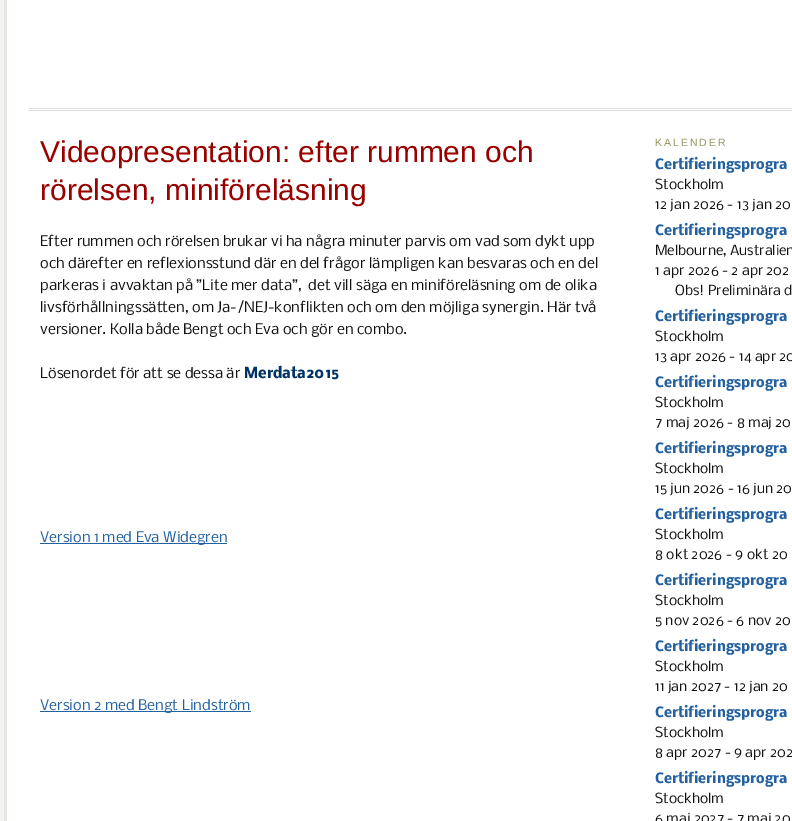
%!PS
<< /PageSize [792 821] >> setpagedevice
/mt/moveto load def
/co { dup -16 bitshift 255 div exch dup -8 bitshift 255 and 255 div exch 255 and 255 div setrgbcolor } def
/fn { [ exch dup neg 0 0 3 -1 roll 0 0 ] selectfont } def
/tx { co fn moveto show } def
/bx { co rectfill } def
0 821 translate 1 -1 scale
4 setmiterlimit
0 0 792 821 16#E6E8E6 bx
0 0 4 821 16#F2F4F2 bx
7 0 785 821 16#FFFFFF bx
29 108 763 1 16#DDDDDD bx
29 110 763 1 16#DDDDDD bx
40 543 187 1 16#2361A1 bx
40 711 211 1 16#2361A1 bx
(Videopresentation: efter rummen och) 40 162 /LiberationSans-Regular 30 16#990000 tx
(rörelsen, miniföreläsning) 40 200 /LiberationSans-Regular 30 16#990000 tx
(Efter rummen och rörelsen brukar vi ha några minuter parvis om vad som dykt upp) 40 246 /Nobile-Regular 14 16#111111 tx
(och därefter en reflexionsstund där en del frågor lämpligen kan besvaras och en del) 40 268 /Nobile-Regular 14 16#111111 tx
(parkeras i avvaktan på ”Lite mer data”,  det vill säga en miniföreläsning om de olika) 40 290 /Nobile-Regular 14 16#111111 tx
(livsförhållningssätten, om Ja-/NEJ-konflikten och om den möjliga synergin. Här två) 40 312 /Nobile-Regular 14 16#111111 tx
(versioner. Kolla både Bengt och Eva och gör en combo.) 40 334 /Nobile-Regular 14 16#111111 tx
(Lösenordet för att se dessa är) 40 378 /Nobile-Regular 14 16#111111 tx
(Merdata2015) 244 378 /Nobile-Bold 14 16#003366 tx
(Version 1 med Eva Widegren) 40 542 /Nobile-Regular 14 16#2361A1 tx
(Version 2 med Bengt Lindström) 40 710 /Nobile-Regular 14 16#2361A1 tx
/LiberationSans-Regular 10.5 fn
16#999966 co
655 146 mt 2 0 (KALENDER) ashow
(Certifieringsprogra) 655 169 /Nobile-Bold 13.25 16#2361A1 tx
(Stockholm) 655 189 /Nobile-Regular 13.25 16#111111 tx
(12 jan 2026 - 13 jan 20) 655 209 /Nobile-Regular 13.25 16#111111 tx
(Certifieringsprogra) 655 235 /Nobile-Bold 13.25 16#2361A1 tx
(Melbourne, Australien) 655 255 /Nobile-Regular 13.25 16#111111 tx
(1 apr 2026 - 2 apr 202) 655 275 /Nobile-Regular 13.25 16#111111 tx
(Obs! Preliminära d) 675 295 /Nobile-Regular 13.25 16#111111 tx
(Certifieringsprogra) 655 321 /Nobile-Bold 13.25 16#2361A1 tx
(Stockholm) 655 341 /Nobile-Regular 13.25 16#111111 tx
(13 apr 2026 - 14 apr 20) 655 361 /Nobile-Regular 13.25 16#111111 tx
(Certifieringsprogra) 655 387 /Nobile-Bold 13.25 16#2361A1 tx
(Stockholm) 655 407 /Nobile-Regular 13.25 16#111111 tx
(7 maj 2026 - 8 maj 20) 655 427 /Nobile-Regular 13.25 16#111111 tx
(Certifieringsprogra) 655 453 /Nobile-Bold 13.25 16#2361A1 tx
(Stockholm) 655 473 /Nobile-Regular 13.25 16#111111 tx
(15 jun 2026 - 16 jun 20) 655 493 /Nobile-Regular 13.25 16#111111 tx
(Certifieringsprogra) 655 519 /Nobile-Bold 13.25 16#2361A1 tx
(Stockholm) 655 539 /Nobile-Regular 13.25 16#111111 tx
(8 okt 2026 - 9 okt 20) 655 559 /Nobile-Regular 13.25 16#111111 tx
(Certifieringsprogra) 655 585 /Nobile-Bold 13.25 16#2361A1 tx
(Stockholm) 655 605 /Nobile-Regular 13.25 16#111111 tx
(5 nov 2026 - 6 nov 20) 655 625 /Nobile-Regular 13.25 16#111111 tx
(Certifieringsprogra) 655 651 /Nobile-Bold 13.25 16#2361A1 tx
(Stockholm) 655 671 /Nobile-Regular 13.25 16#111111 tx
(11 jan 2027 - 12 jan 20) 655 691 /Nobile-Regular 13.25 16#111111 tx
(Certifieringsprogra) 655 717 /Nobile-Bold 13.25 16#2361A1 tx
(Stockholm) 655 737 /Nobile-Regular 13.25 16#111111 tx
(8 apr 2027 - 9 apr 202) 655 757 /Nobile-Regular 13.25 16#111111 tx
(Certifieringsprogra) 655 783 /Nobile-Bold 13.25 16#2361A1 tx
(Stockholm) 655 803 /Nobile-Regular 13.25 16#111111 tx
(6 maj 2027 - 7 maj 20) 655 823 /Nobile-Regular 13.25 16#111111 tx
showpage
